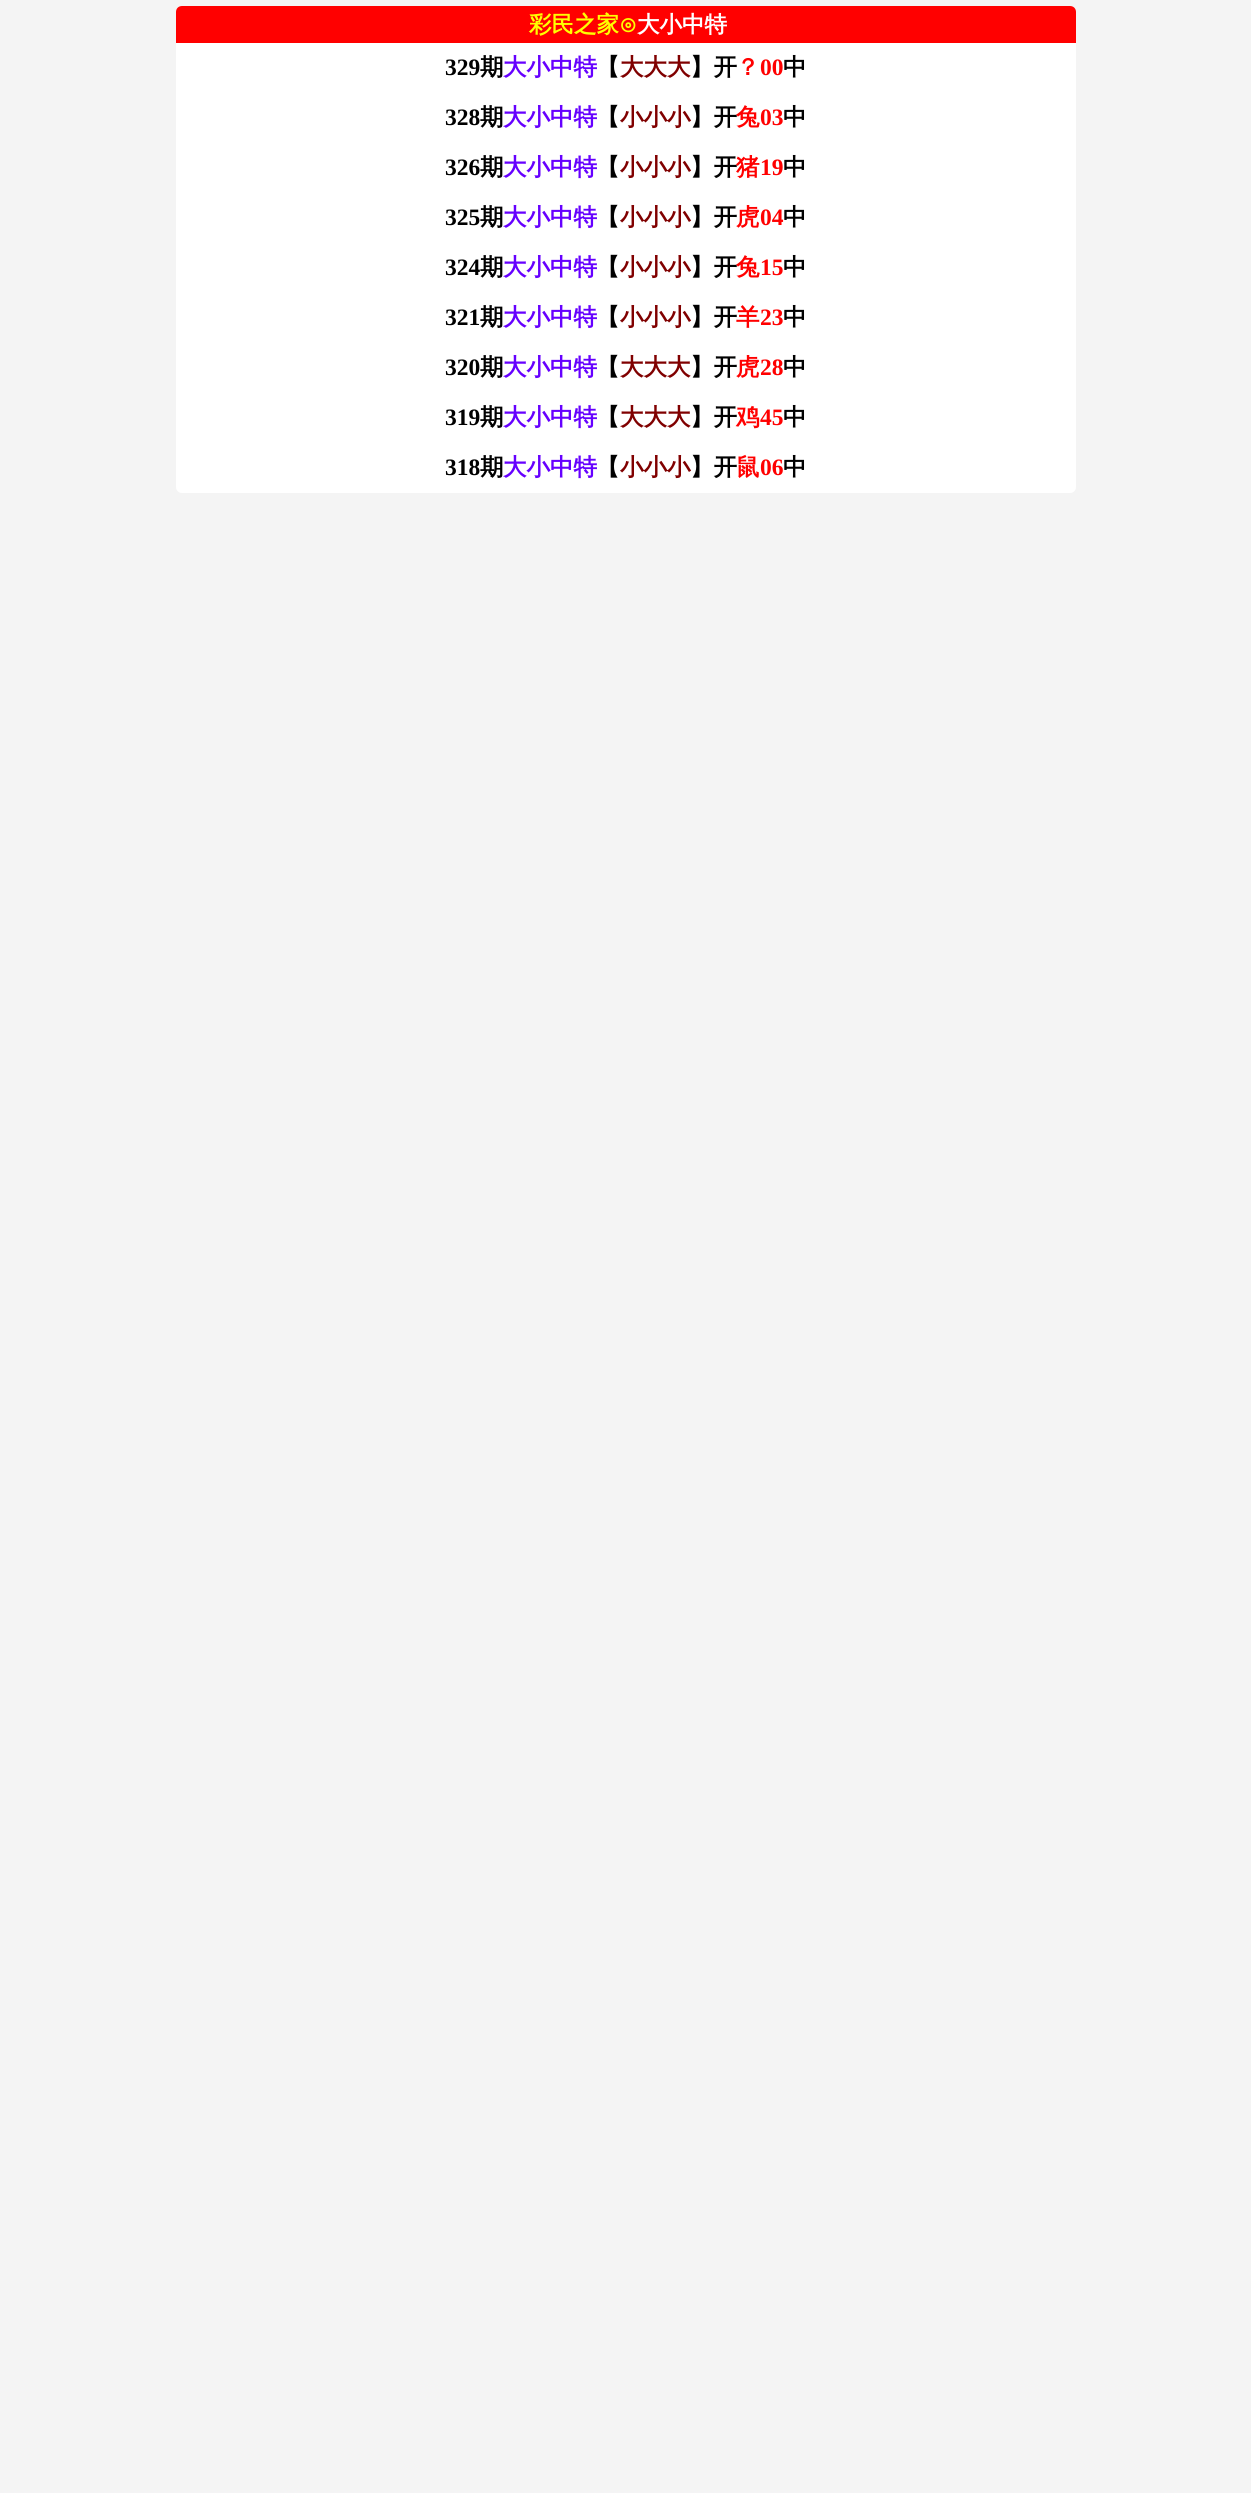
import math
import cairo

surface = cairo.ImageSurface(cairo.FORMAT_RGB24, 1251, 2493)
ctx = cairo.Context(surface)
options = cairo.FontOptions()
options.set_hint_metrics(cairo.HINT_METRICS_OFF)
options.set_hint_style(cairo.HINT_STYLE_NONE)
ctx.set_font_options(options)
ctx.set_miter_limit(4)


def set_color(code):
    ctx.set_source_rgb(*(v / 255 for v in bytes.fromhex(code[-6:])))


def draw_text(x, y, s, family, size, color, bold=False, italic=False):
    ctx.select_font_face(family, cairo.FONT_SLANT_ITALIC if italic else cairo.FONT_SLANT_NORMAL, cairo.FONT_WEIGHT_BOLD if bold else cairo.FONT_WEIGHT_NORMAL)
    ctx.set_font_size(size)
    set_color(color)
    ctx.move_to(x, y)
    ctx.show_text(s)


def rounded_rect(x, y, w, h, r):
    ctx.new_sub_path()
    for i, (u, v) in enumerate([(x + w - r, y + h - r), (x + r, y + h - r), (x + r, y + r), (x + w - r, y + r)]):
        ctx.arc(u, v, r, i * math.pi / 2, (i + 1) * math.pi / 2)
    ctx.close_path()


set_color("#f4f4f4")
ctx.paint()
set_color("#ffffff")
rounded_rect(176, 6, 900, 487, 6)
ctx.fill()
set_color("#ff0000")
ctx.new_path()
ctx.move_to(182, 6)
ctx.line_to(1070, 6)
ctx.curve_to(1073.5, 6, 1076, 8.5, 1076, 12)
ctx.line_to(1076, 43)
ctx.line_to(176, 43)
ctx.line_to(176, 12)
ctx.curve_to(176, 8.5, 178.5, 6, 182, 6)
ctx.close_path()
ctx.fill()
draw_text(529, 32, "彩民之家⊙", "WenQuanYi Zen Hei", 22.5, "#ffff00", bold=True)
draw_text(637, 32, "大小中特", "WenQuanYi Zen Hei", 22.5, "#ffffff", bold=True)
draw_text(445, 75, "329", "Liberation Serif", 23.5, "#000000", bold=True)
draw_text(480, 75, "期", "WenQuanYi Zen Hei", 23.5, "#000000", bold=True)
draw_text(503, 75, "大小中特", "WenQuanYi Zen Hei", 23.5, "#6600ff", bold=True)
draw_text(596, 75, "【", "WenQuanYi Zen Hei", 23.5, "#000000", bold=True)
draw_text(620, 75, "大大大", "WenQuanYi Zen Hei", 23.5, "#800000", bold=True)
draw_text(690, 75, "】开", "WenQuanYi Zen Hei", 23.5, "#000000", bold=True)
draw_text(736, 75, "？", "WenQuanYi Zen Hei", 23.5, "#ff0000", bold=True)
draw_text(760, 75, "00", "Liberation Serif", 23.5, "#ff0000", bold=True)
draw_text(783, 75, "中", "WenQuanYi Zen Hei", 23.5, "#000000", bold=True)
draw_text(445, 125, "328", "Liberation Serif", 23.5, "#000000", bold=True)
draw_text(480, 125, "期", "WenQuanYi Zen Hei", 23.5, "#000000", bold=True)
draw_text(503, 125, "大小中特", "WenQuanYi Zen Hei", 23.5, "#6600ff", bold=True)
draw_text(596, 125, "【", "WenQuanYi Zen Hei", 23.5, "#000000", bold=True)
draw_text(620, 125, "小小小", "WenQuanYi Zen Hei", 23.5, "#800000", bold=True)
draw_text(690, 125, "】开", "WenQuanYi Zen Hei", 23.5, "#000000", bold=True)
draw_text(736, 125, "兔", "WenQuanYi Zen Hei", 23.5, "#ff0000", bold=True)
draw_text(760, 125, "03", "Liberation Serif", 23.5, "#ff0000", bold=True)
draw_text(783, 125, "中", "WenQuanYi Zen Hei", 23.5, "#000000", bold=True)
draw_text(445, 175, "326", "Liberation Serif", 23.5, "#000000", bold=True)
draw_text(480, 175, "期", "WenQuanYi Zen Hei", 23.5, "#000000", bold=True)
draw_text(503, 175, "大小中特", "WenQuanYi Zen Hei", 23.5, "#6600ff", bold=True)
draw_text(596, 175, "【", "WenQuanYi Zen Hei", 23.5, "#000000", bold=True)
draw_text(620, 175, "小小小", "WenQuanYi Zen Hei", 23.5, "#800000", bold=True)
draw_text(690, 175, "】开", "WenQuanYi Zen Hei", 23.5, "#000000", bold=True)
draw_text(736, 175, "猪", "WenQuanYi Zen Hei", 23.5, "#ff0000", bold=True)
draw_text(760, 175, "19", "Liberation Serif", 23.5, "#ff0000", bold=True)
draw_text(783, 175, "中", "WenQuanYi Zen Hei", 23.5, "#000000", bold=True)
draw_text(445, 225, "325", "Liberation Serif", 23.5, "#000000", bold=True)
draw_text(480, 225, "期", "WenQuanYi Zen Hei", 23.5, "#000000", bold=True)
draw_text(503, 225, "大小中特", "WenQuanYi Zen Hei", 23.5, "#6600ff", bold=True)
draw_text(596, 225, "【", "WenQuanYi Zen Hei", 23.5, "#000000", bold=True)
draw_text(620, 225, "小小小", "WenQuanYi Zen Hei", 23.5, "#800000", bold=True)
draw_text(690, 225, "】开", "WenQuanYi Zen Hei", 23.5, "#000000", bold=True)
draw_text(736, 225, "虎", "WenQuanYi Zen Hei", 23.5, "#ff0000", bold=True)
draw_text(760, 225, "04", "Liberation Serif", 23.5, "#ff0000", bold=True)
draw_text(783, 225, "中", "WenQuanYi Zen Hei", 23.5, "#000000", bold=True)
draw_text(445, 275, "324", "Liberation Serif", 23.5, "#000000", bold=True)
draw_text(480, 275, "期", "WenQuanYi Zen Hei", 23.5, "#000000", bold=True)
draw_text(503, 275, "大小中特", "WenQuanYi Zen Hei", 23.5, "#6600ff", bold=True)
draw_text(596, 275, "【", "WenQuanYi Zen Hei", 23.5, "#000000", bold=True)
draw_text(620, 275, "小小小", "WenQuanYi Zen Hei", 23.5, "#800000", bold=True)
draw_text(690, 275, "】开", "WenQuanYi Zen Hei", 23.5, "#000000", bold=True)
draw_text(736, 275, "兔", "WenQuanYi Zen Hei", 23.5, "#ff0000", bold=True)
draw_text(760, 275, "15", "Liberation Serif", 23.5, "#ff0000", bold=True)
draw_text(783, 275, "中", "WenQuanYi Zen Hei", 23.5, "#000000", bold=True)
draw_text(445, 325, "321", "Liberation Serif", 23.5, "#000000", bold=True)
draw_text(480, 325, "期", "WenQuanYi Zen Hei", 23.5, "#000000", bold=True)
draw_text(503, 325, "大小中特", "WenQuanYi Zen Hei", 23.5, "#6600ff", bold=True)
draw_text(596, 325, "【", "WenQuanYi Zen Hei", 23.5, "#000000", bold=True)
draw_text(620, 325, "小小小", "WenQuanYi Zen Hei", 23.5, "#800000", bold=True)
draw_text(690, 325, "】开", "WenQuanYi Zen Hei", 23.5, "#000000", bold=True)
draw_text(736, 325, "羊", "WenQuanYi Zen Hei", 23.5, "#ff0000", bold=True)
draw_text(760, 325, "23", "Liberation Serif", 23.5, "#ff0000", bold=True)
draw_text(783, 325, "中", "WenQuanYi Zen Hei", 23.5, "#000000", bold=True)
draw_text(445, 375, "320", "Liberation Serif", 23.5, "#000000", bold=True)
draw_text(480, 375, "期", "WenQuanYi Zen Hei", 23.5, "#000000", bold=True)
draw_text(503, 375, "大小中特", "WenQuanYi Zen Hei", 23.5, "#6600ff", bold=True)
draw_text(596, 375, "【", "WenQuanYi Zen Hei", 23.5, "#000000", bold=True)
draw_text(620, 375, "大大大", "WenQuanYi Zen Hei", 23.5, "#800000", bold=True)
draw_text(690, 375, "】开", "WenQuanYi Zen Hei", 23.5, "#000000", bold=True)
draw_text(736, 375, "虎", "WenQuanYi Zen Hei", 23.5, "#ff0000", bold=True)
draw_text(760, 375, "28", "Liberation Serif", 23.5, "#ff0000", bold=True)
draw_text(783, 375, "中", "WenQuanYi Zen Hei", 23.5, "#000000", bold=True)
draw_text(445, 425, "319", "Liberation Serif", 23.5, "#000000", bold=True)
draw_text(480, 425, "期", "WenQuanYi Zen Hei", 23.5, "#000000", bold=True)
draw_text(503, 425, "大小中特", "WenQuanYi Zen Hei", 23.5, "#6600ff", bold=True)
draw_text(596, 425, "【", "WenQuanYi Zen Hei", 23.5, "#000000", bold=True)
draw_text(620, 425, "大大大", "WenQuanYi Zen Hei", 23.5, "#800000", bold=True)
draw_text(690, 425, "】开", "WenQuanYi Zen Hei", 23.5, "#000000", bold=True)
draw_text(736, 425, "鸡", "WenQuanYi Zen Hei", 23.5, "#ff0000", bold=True)
draw_text(760, 425, "45", "Liberation Serif", 23.5, "#ff0000", bold=True)
draw_text(783, 425, "中", "WenQuanYi Zen Hei", 23.5, "#000000", bold=True)
draw_text(445, 475, "318", "Liberation Serif", 23.5, "#000000", bold=True)
draw_text(480, 475, "期", "WenQuanYi Zen Hei", 23.5, "#000000", bold=True)
draw_text(503, 475, "大小中特", "WenQuanYi Zen Hei", 23.5, "#6600ff", bold=True)
draw_text(596, 475, "【", "WenQuanYi Zen Hei", 23.5, "#000000", bold=True)
draw_text(620, 475, "小小小", "WenQuanYi Zen Hei", 23.5, "#800000", bold=True)
draw_text(690, 475, "】开", "WenQuanYi Zen Hei", 23.5, "#000000", bold=True)
draw_text(736, 475, "鼠", "WenQuanYi Zen Hei", 23.5, "#ff0000", bold=True)
draw_text(760, 475, "06", "Liberation Serif", 23.5, "#ff0000", bold=True)
draw_text(783, 475, "中", "WenQuanYi Zen Hei", 23.5, "#000000", bold=True)
surface.write_to_png("output.png")
